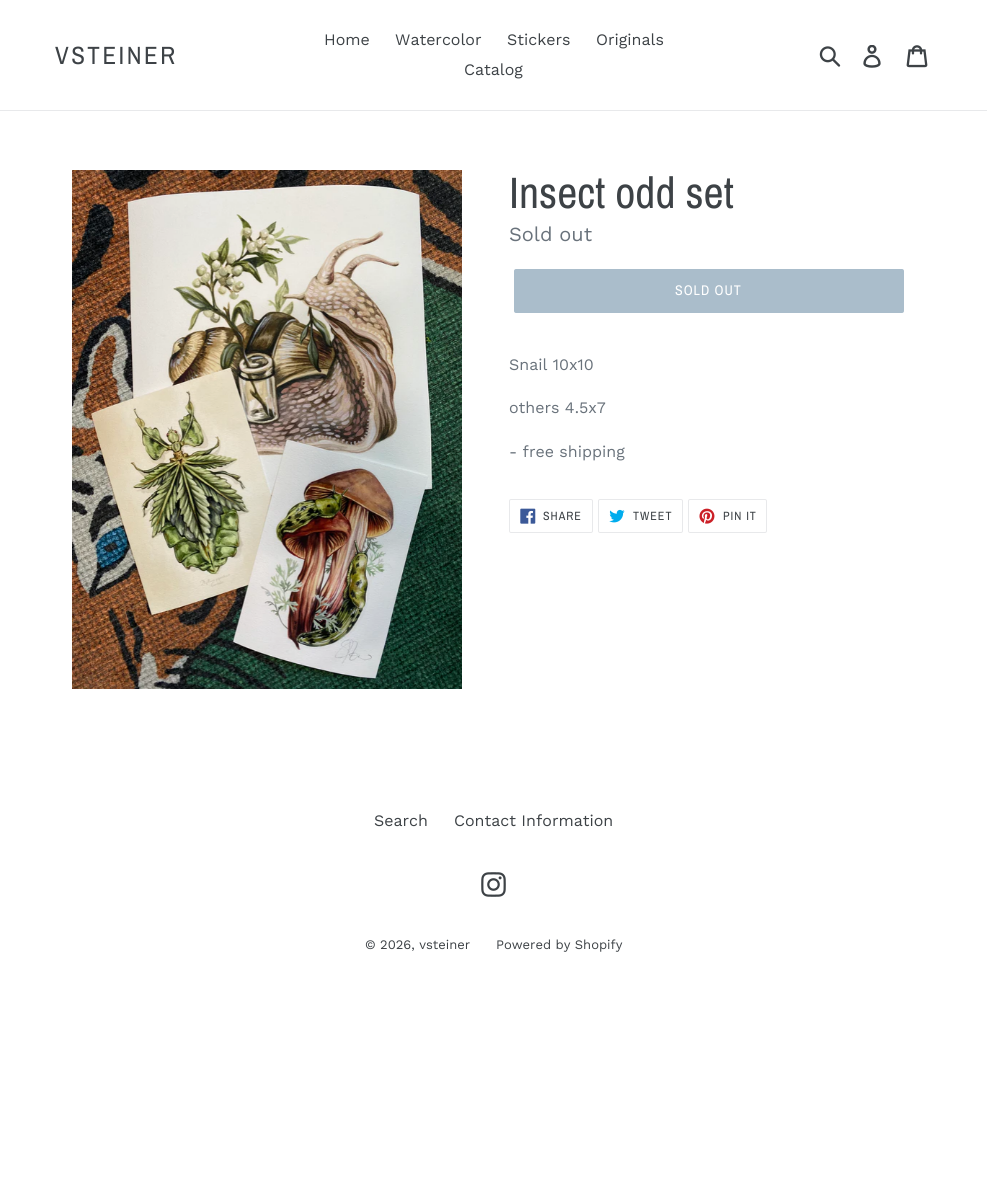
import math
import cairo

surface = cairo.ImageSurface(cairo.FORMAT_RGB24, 987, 1191)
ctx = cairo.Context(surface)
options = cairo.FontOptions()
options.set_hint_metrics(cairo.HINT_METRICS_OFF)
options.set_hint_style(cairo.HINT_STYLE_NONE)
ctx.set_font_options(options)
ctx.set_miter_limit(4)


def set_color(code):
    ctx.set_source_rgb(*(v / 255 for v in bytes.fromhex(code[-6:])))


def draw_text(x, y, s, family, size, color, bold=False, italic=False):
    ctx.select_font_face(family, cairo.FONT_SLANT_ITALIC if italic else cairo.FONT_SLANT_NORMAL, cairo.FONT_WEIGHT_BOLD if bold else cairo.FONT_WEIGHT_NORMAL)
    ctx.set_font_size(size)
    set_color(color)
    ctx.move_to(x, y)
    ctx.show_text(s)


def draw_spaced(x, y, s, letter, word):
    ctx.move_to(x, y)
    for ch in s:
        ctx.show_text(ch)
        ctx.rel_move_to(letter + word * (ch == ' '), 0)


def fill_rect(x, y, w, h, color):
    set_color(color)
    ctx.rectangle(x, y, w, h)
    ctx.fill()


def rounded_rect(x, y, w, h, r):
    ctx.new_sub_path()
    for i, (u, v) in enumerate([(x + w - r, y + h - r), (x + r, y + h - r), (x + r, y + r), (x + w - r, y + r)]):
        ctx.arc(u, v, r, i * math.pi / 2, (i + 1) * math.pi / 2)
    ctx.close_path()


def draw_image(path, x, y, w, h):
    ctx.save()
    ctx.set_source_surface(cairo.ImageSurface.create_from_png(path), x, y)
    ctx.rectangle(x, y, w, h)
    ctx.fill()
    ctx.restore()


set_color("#ffffff")
ctx.paint()
fill_rect(0, 110, 987, 1, "#e8e9eb")
ctx.select_font_face("Archivo Narrow")
ctx.set_font_size(25)
set_color("#3d4246")
draw_spaced(55, 64, "VSTEINER", 2.5, 0)
draw_text(324, 45, "Home", "Work Sans", 16, "#3d4246")
draw_text(395, 45, "Watercolor", "Work Sans", 16, "#3d4246")
draw_text(507, 45, "Stickers", "Work Sans", 16, "#3d4246")
draw_text(596, 45, "Originals", "Work Sans", 16, "#3d4246")
draw_text(464, 75, "Catalog", "Work Sans", 16, "#3d4246")
draw_image("assets/img1.png", 819, 46, 22, 21)
draw_image("assets/img2.png", 863, 45, 18, 23)
draw_image("assets/img3.png", 906, 45, 22, 23)
draw_image("assets/img4.png", 72, 170, 390, 519)
draw_text(509, 208, "Insect odd set", "Archivo Narrow", 44, "#3d4246")
draw_text(509, 241, "Sold out", "Work Sans", 20, "#69727b")
set_color("#aabdcb")
rounded_rect(514, 269, 390, 44, 2)
ctx.fill()
ctx.select_font_face("Archivo Narrow")
ctx.set_font_size(14)
set_color("#ffffff")
draw_spaced(675, 295, "SOLD OUT", 1, 0)
draw_text(509, 370, "Snail 10x10", "Work Sans", 16, "#69727b")
draw_text(509, 413, "others 4.5x7", "Work Sans", 16, "#69727b")
draw_text(509, 457, "- free shipping", "Work Sans", 16, "#69727b")
rounded_rect(509.5, 499.5, 83, 33, 1.5)
set_color("#e8e9eb")
ctx.set_line_width(1)
ctx.stroke()
draw_image("assets/img5.png", 520, 508, 16, 16)
ctx.select_font_face("Archivo Narrow")
ctx.set_font_size(12)
set_color("#3d4246")
draw_spaced(543, 520, "SHARE", 1, 0)
rounded_rect(598.5, 499.5, 84, 33, 1.5)
set_color("#e8e9eb")
ctx.stroke()
draw_image("assets/img6.png", 609, 509, 16, 14)
set_color("#3d4246")
draw_spaced(633, 520, "TWEET", 1, 0)
rounded_rect(688.5, 499.5, 78, 33, 1.5)
set_color("#e8e9eb")
ctx.stroke()
draw_image("assets/img7.png", 699, 508, 16, 16)
set_color("#3d4246")
draw_spaced(723, 520, "PIN IT", 1, 0)
draw_text(374, 826, "Search", "Work Sans", 16, "#3d4246")
draw_text(454, 826, "Contact Information", "Work Sans", 16, "#3d4246")
draw_image("assets/img8.png", 481, 872, 25, 25)
draw_text(365, 949, "© 2026, vsteiner", "Work Sans", 13, "#3d4246")
draw_text(496, 949, "Powered by Shopify", "Work Sans", 13, "#3d4246")
surface.write_to_png("output.png")
